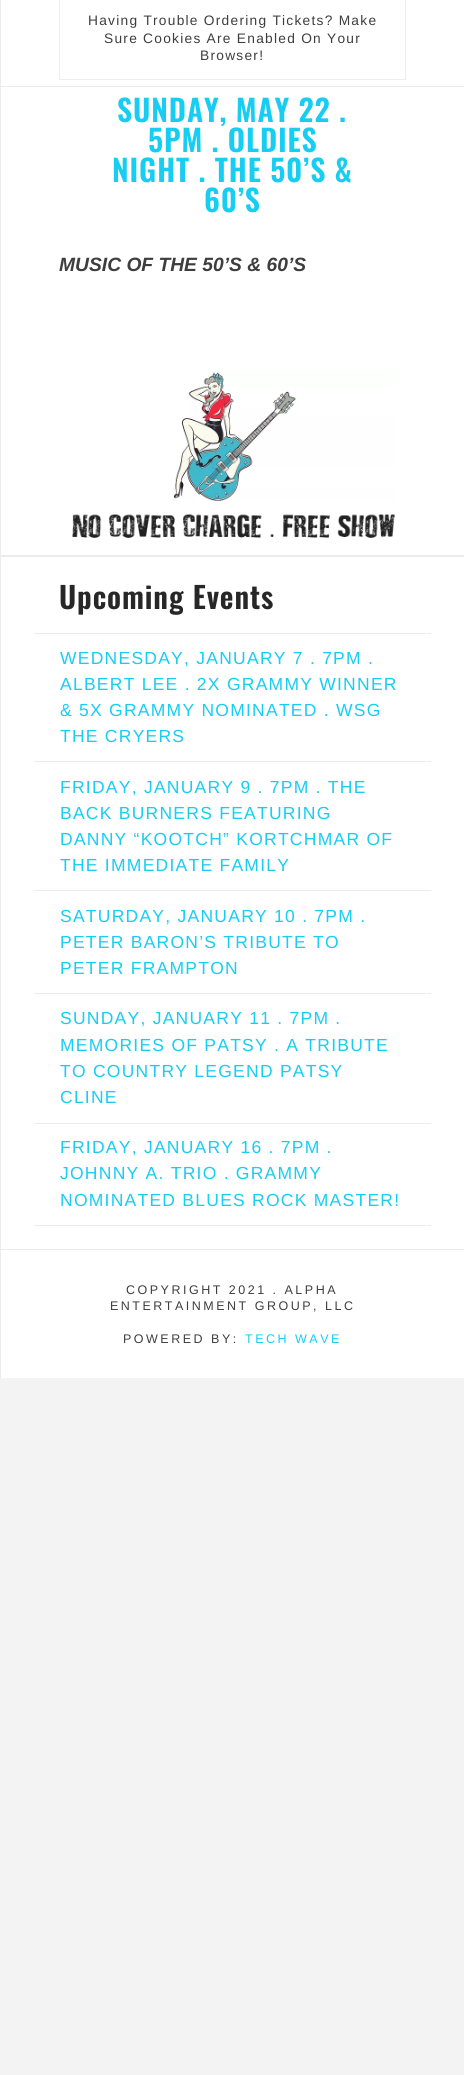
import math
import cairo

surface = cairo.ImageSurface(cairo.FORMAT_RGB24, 464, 2075)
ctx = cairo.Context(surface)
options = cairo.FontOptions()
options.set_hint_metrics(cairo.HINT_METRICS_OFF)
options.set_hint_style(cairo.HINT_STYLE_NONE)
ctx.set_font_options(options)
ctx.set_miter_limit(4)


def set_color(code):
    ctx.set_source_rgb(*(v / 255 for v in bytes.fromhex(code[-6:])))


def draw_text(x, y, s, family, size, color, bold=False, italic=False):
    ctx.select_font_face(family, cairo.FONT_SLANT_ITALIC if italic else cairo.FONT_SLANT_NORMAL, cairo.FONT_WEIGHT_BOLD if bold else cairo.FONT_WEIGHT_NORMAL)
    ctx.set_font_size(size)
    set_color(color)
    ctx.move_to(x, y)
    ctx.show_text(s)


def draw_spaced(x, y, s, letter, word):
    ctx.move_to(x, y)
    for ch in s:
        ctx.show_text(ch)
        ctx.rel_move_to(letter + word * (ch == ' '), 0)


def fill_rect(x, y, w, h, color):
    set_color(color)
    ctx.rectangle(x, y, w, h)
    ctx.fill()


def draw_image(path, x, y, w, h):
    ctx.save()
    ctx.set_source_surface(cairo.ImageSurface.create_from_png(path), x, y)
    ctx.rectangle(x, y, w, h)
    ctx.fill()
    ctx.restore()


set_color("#f3f3f3")
ctx.paint()
fill_rect(1, 0, 463, 1378, "#ffffff")
fill_rect(0, 0, 1, 1378, "#ececec")
fill_rect(1, 86, 463, 1, "#ececec")
ctx.new_path()
ctx.move_to(406, 0)
ctx.line_to(406, 80)
ctx.line_to(405, 79)
ctx.line_to(405, 0)
ctx.close_path()
ctx.fill()
ctx.set_source_rgba(0, 0, 0, 0.07)
ctx.new_path()
ctx.move_to(406, 80)
ctx.line_to(59, 80)
ctx.line_to(60, 79)
ctx.line_to(405, 79)
ctx.close_path()
ctx.fill()
ctx.new_path()
ctx.move_to(59, 80)
ctx.line_to(59, 0)
ctx.line_to(60, 0)
ctx.line_to(60, 79)
ctx.close_path()
ctx.fill()
ctx.select_font_face("Liberation Sans")
ctx.set_font_size(13.75)
set_color("#3e3e3e")
draw_spaced(88, 25, "Having Trouble Ordering Tickets? Make", 1.25, 0)
draw_spaced(104, 43, "Sure Cookies Are Enabled On Your", 1.25, 0)
draw_spaced(200, 60, "Browser!", 1.25, 0)
fill_rect(1, 555, 463, 2, "#ececec")
ctx.select_font_face("Oswald SemiBold")
ctx.set_font_size(30)
set_color("#18cdf2")
draw_spaced(117, 122, "SUNDAY, MAY 22 .", 0.9, 0)
draw_spaced(148, 152, "5PM . OLDIES", 0.9, 0)
draw_spaced(112, 182, "NIGHT . THE 50’S &", 0.9, 0)
draw_spaced(204, 212, "60’S", 0.9, 0)
draw_text(59, 271, "MUSIC OF THE 50’S & 60’S", "Liberation Sans", 19.25, "#3e3e3e", bold=True, italic=True)
draw_image("assets/img1.png", 72, 372, 324, 166)
ctx.select_font_face("Oswald SemiBold")
ctx.set_font_size(29.75)
set_color("#272727")
draw_spaced(59, 609, "Upcoming Events", 0.9, 0)
fill_rect(34, 633, 397, 1, "#ececec")
fill_rect(34, 761, 397, 1, "#ececec")
ctx.select_font_face("Liberation Sans")
ctx.set_font_size(17.5)
set_color("#18cdf2")
draw_spaced(60, 664, "WEDNESDAY, JANUARY 7 . 7PM .", 1.25, 0)
draw_spaced(60, 690, "ALBERT LEE . 2X GRAMMY WINNER", 1.25, 0)
draw_spaced(60, 716, "& 5X GRAMMY NOMINATED . WSG", 1.25, 0)
draw_spaced(60, 742, "THE CRYERS", 1.25, 0)
fill_rect(34, 890, 397, 1, "#ececec")
set_color("#18cdf2")
draw_spaced(60, 793, "FRIDAY, JANUARY 9 . 7PM . THE", 1.25, 0)
draw_spaced(60, 819, "BACK BURNERS FEATURING", 1.25, 0)
draw_spaced(60, 845, "DANNY “KOOTCH” KORTCHMAR OF", 1.25, 0)
draw_spaced(60, 871, "THE IMMEDIATE FAMILY", 1.25, 0)
fill_rect(34, 993, 397, 1, "#ececec")
set_color("#18cdf2")
draw_spaced(60, 922, "SATURDAY, JANUARY 10 . 7PM .", 1.25, 0)
draw_spaced(60, 948, "PETER BARON’S TRIBUTE TO", 1.25, 0)
draw_spaced(60, 974, "PETER FRAMPTON", 1.25, 0)
fill_rect(34, 1123, 397, 1, "#ececec")
set_color("#18cdf2")
draw_spaced(60, 1024, "SUNDAY, JANUARY 11 . 7PM .", 1.25, 0)
draw_spaced(60, 1051, "MEMORIES OF PATSY . A TRIBUTE", 1.25, 0)
draw_spaced(60, 1077, "TO COUNTRY LEGEND PATSY", 1.25, 0)
draw_spaced(60, 1103, "CLINE", 1.25, 0)
fill_rect(34, 1225, 397, 1, "#ececec")
set_color("#18cdf2")
draw_spaced(60, 1153, "FRIDAY, JANUARY 16 . 7PM .", 1.25, 0)
draw_spaced(60, 1179, "JOHNNY A. TRIO . GRAMMY", 1.25, 0)
draw_spaced(60, 1206, "NOMINATED BLUES ROCK MASTER!", 1.25, 0)
fill_rect(1, 1249, 463, 1, "#ececec")
ctx.set_font_size(12.5)
set_color("#3e3e3e")
draw_spaced(126, 1294, "COPYRIGHT 2021 . ALPHA", 2.5, 0)
draw_spaced(110, 1310, "ENTERTAINMENT GROUP, LLC", 2.5, 0)
draw_spaced(123, 1343, "POWERED BY:", 2.5, 0)
set_color("#18cdf2")
draw_spaced(245, 1343, "TECH WAVE", 2.5, 0)
surface.write_to_png("output.png")
